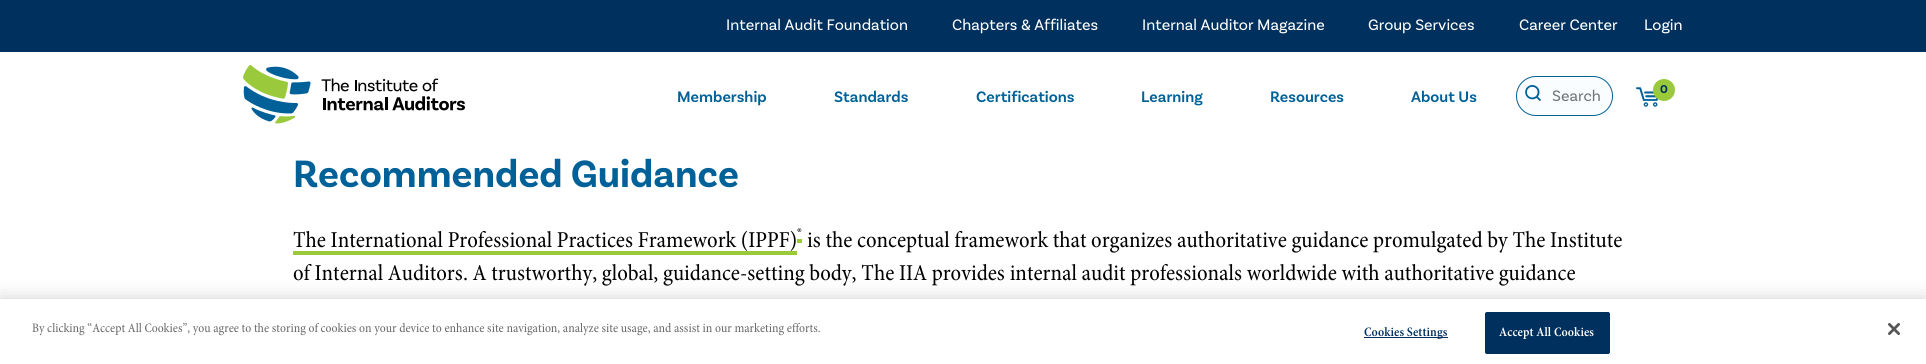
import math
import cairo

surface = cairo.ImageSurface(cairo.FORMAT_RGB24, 1926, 364)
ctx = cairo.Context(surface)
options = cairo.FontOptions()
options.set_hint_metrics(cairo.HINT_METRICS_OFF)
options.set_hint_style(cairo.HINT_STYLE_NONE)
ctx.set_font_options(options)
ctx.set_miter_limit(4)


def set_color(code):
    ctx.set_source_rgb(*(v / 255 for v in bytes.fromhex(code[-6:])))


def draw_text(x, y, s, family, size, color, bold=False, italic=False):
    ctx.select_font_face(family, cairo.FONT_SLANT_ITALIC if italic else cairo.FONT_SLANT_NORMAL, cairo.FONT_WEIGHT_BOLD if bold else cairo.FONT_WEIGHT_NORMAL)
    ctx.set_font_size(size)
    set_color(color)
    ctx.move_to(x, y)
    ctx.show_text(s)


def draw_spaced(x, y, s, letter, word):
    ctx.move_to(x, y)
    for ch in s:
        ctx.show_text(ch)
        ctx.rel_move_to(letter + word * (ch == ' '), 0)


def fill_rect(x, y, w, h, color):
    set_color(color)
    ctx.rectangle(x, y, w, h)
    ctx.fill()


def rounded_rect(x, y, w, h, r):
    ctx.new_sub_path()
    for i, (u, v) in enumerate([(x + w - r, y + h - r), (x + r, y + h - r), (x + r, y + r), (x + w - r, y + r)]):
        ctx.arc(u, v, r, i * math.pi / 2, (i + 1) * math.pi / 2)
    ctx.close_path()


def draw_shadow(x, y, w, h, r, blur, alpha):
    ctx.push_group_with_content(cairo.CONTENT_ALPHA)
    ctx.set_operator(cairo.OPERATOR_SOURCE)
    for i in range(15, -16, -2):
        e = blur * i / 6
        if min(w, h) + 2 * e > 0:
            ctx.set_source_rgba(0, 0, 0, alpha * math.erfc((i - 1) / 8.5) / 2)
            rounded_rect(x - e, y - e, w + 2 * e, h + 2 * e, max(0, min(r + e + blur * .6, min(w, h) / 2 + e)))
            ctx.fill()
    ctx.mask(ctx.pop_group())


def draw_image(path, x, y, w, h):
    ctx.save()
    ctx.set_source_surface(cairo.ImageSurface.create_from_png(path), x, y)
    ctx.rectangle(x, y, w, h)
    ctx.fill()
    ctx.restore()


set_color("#ffffff")
ctx.paint()
fill_rect(0, 0, 1926, 52, "#00305e")
draw_image("assets/img1.png", 243, 65, 222, 59)
draw_text(726, 30, "Internal Audit Foundation", "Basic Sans", 16, "#ffffff")
draw_text(952, 30, "Chapters & Affiliates", "Basic Sans", 16, "#ffffff")
draw_text(1142, 30, "Internal Auditor Magazine", "Basic Sans", 16, "#ffffff")
draw_text(1368, 30, "Group Services", "Basic Sans", 16, "#ffffff")
draw_text(1519, 30, "Career Center", "Basic Sans", 16, "#ffffff")
draw_text(1644, 30, "Login", "Basic Sans", 16, "#ffffff")
draw_text(677, 102, "Membership", "Basic Sans SemiBold", 16, "#006198")
draw_text(834, 102, "Standards", "Basic Sans SemiBold", 16, "#006198")
draw_text(976, 102, "Certifications", "Basic Sans SemiBold", 16, "#006198")
draw_text(1141, 102, "Learning", "Basic Sans SemiBold", 16, "#006198")
draw_text(1270, 102, "Resources", "Basic Sans SemiBold", 16, "#006198")
draw_text(1411, 102, "About Us", "Basic Sans SemiBold", 16, "#006198")
set_color("#fafdff")
rounded_rect(1516.5, 76.5, 96, 39, 19.5)
ctx.fill_preserve()
set_color("#006198")
ctx.set_line_width(1)
ctx.stroke()
draw_image("assets/img2.png", 1525, 85, 16, 16)
draw_text(1552, 101, "Search", "Basic Sans", 16, "#757575")
draw_image("assets/img3.png", 1636, 87, 22, 20)
set_color("#9aca3c")
ctx.arc(1664, 90, 11, 0, 2 * math.pi)
ctx.fill()
draw_text(1660, 93, "0", "Basic Sans", 12, "#00305e", bold=True)
draw_text(293, 187, "Recommended Guidance", "Basic Sans", 40, "#006198", bold=True)
draw_text(293, 247, "The International Professional Practices Framework (IPPF)", "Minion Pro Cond", 23, "#000000")
fill_rect(293, 251, 504, 4, "#9aca3c")
fill_rect(797, 239, 5, 4, "#9aca3c")
draw_text(797, 238, "®", "Minion Pro Cond", 15, "#000000")
draw_text(807, 247, "is the conceptual framework that organizes authoritative guidance promulgated by The Institute", "Minion Pro Cond", 23, "#000000")
draw_text(293, 280, "of Internal Auditors. A trustworthy, global, guidance-setting body, The IIA provides internal audit professionals worldwide with authoritative guidance", "Minion Pro Cond", 23, "#000000")
set_color("#000000")
draw_shadow(0, 299, 1926, 65, 0, 9, 0.2)
fill_rect(0, 299, 1926, 65, "#ffffff")
draw_text(32, 332, "By clicking “Accept All Cookies”, you agree to the storing of cookies on your device to enhance site navigation, analyze site usage, and assist in our marketing efforts.", "Minion Pro Cond", 13, "#696969")
fill_rect(1364, 337, 84, 1, "#00305e")
ctx.select_font_face("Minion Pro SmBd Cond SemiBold")
draw_spaced(1364, 336, "Cookies Settings", 0.1, 0)
rounded_rect(1485.5, 312.5, 124, 41, 1.5)
ctx.fill_preserve()
ctx.stroke()
set_color("#ffffff")
draw_spaced(1499, 336, "Accept All Cookies", 0.1, 0)
draw_image("assets/img4.png", 1888, 323, 12, 12)
surface.write_to_png("output.png")
